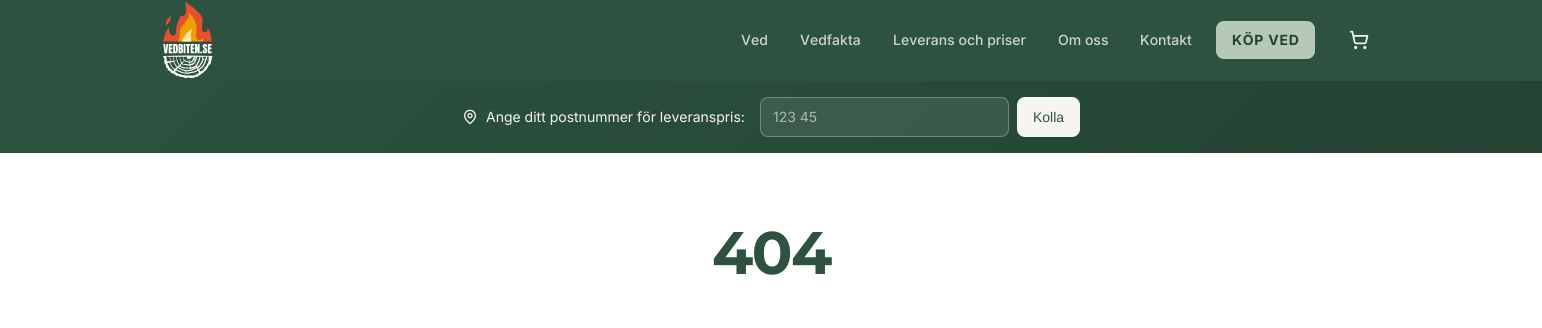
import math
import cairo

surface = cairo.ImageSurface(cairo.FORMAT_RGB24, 1542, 328)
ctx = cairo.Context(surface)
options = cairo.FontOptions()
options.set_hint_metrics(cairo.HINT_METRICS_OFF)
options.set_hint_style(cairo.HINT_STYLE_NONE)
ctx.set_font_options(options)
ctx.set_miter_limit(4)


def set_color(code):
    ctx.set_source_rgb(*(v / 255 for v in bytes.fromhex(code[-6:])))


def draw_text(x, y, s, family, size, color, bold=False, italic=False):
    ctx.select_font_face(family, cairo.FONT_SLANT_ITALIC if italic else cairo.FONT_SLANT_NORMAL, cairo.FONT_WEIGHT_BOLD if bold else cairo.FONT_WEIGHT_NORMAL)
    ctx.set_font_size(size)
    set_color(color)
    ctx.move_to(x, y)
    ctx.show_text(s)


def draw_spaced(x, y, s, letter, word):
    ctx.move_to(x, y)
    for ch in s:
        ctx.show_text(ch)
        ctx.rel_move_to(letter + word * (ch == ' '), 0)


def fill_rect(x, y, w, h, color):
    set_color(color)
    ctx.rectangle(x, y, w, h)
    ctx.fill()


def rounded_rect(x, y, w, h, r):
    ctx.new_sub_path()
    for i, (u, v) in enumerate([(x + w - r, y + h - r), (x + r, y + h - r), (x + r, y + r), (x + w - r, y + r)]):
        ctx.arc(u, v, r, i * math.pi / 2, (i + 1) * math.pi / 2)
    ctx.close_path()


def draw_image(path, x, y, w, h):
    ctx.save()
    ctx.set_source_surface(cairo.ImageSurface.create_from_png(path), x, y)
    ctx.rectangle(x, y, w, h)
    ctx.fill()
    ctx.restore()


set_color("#ffffff")
ctx.paint()
fill_rect(0, 0, 1542, 81, "#2d5340")
draw_image("assets/img1.png", 163, 2, 50, 76)
draw_text(741, 45, "Ved", "Inter Medium", 14, "#cfd5ce")
draw_text(800, 45, "Vedfakta", "Inter Medium", 14, "#cfd5ce")
draw_text(893, 45, "Leverans och priser", "Inter Medium", 14, "#cfd5ce")
draw_text(1058, 45, "Om oss", "Inter Medium", 14, "#cfd5ce")
draw_text(1140, 45, "Kontakt", "Inter Medium", 14, "#cfd5ce")
set_color("#b6c9b6")
rounded_rect(1216, 21, 99, 38, 8)
ctx.fill()
ctx.select_font_face("Inter", cairo.FONT_SLANT_NORMAL, cairo.FONT_WEIGHT_BOLD)
set_color("#244233")
draw_spaced(1232, 45, "KÖP VED", 0.75, 0)
draw_image("assets/img2.png", 1349, 30, 20, 20)
gradient = cairo.LinearGradient(367, -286, 1175, 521)
gradient.add_color_stop_rgba(0, 0.176, 0.325, 0.251, 1)
gradient.add_color_stop_rgba(1, 0.137, 0.263, 0.2, 1)
ctx.set_source(gradient)
ctx.rectangle(0, 81, 1542, 72)
ctx.fill()
draw_image("assets/img3.png", 464, 109, 12, 16)
draw_text(486, 122, "Ange ditt postnummer för leveranspris:", "Inter", 14, "#f7f5f2")
ctx.set_source_rgba(0.969, 0.961, 0.949, 0.1)
rounded_rect(760, 97, 249, 40, 8)
ctx.fill()
rounded_rect(760.5, 97.5, 248, 39, 7.5)
ctx.set_source_rgba(0.969, 0.961, 0.949, 0.3)
ctx.set_line_width(1)
ctx.stroke()
draw_text(773, 122, "123 45", "Inter", 14, "#acb8af")
set_color("#f7f5f2")
rounded_rect(1017, 97, 63, 40, 8)
ctx.fill()
draw_text(1033, 122, "Kolla", "Liberation Sans", 14, "#2d5340")
ctx.select_font_face("Montserrat", cairo.FONT_SLANT_NORMAL, cairo.FONT_WEIGHT_BOLD)
ctx.set_font_size(60)
draw_spaced(712, 274, "404", -1.5, 0)
surface.write_to_png("output.png")
